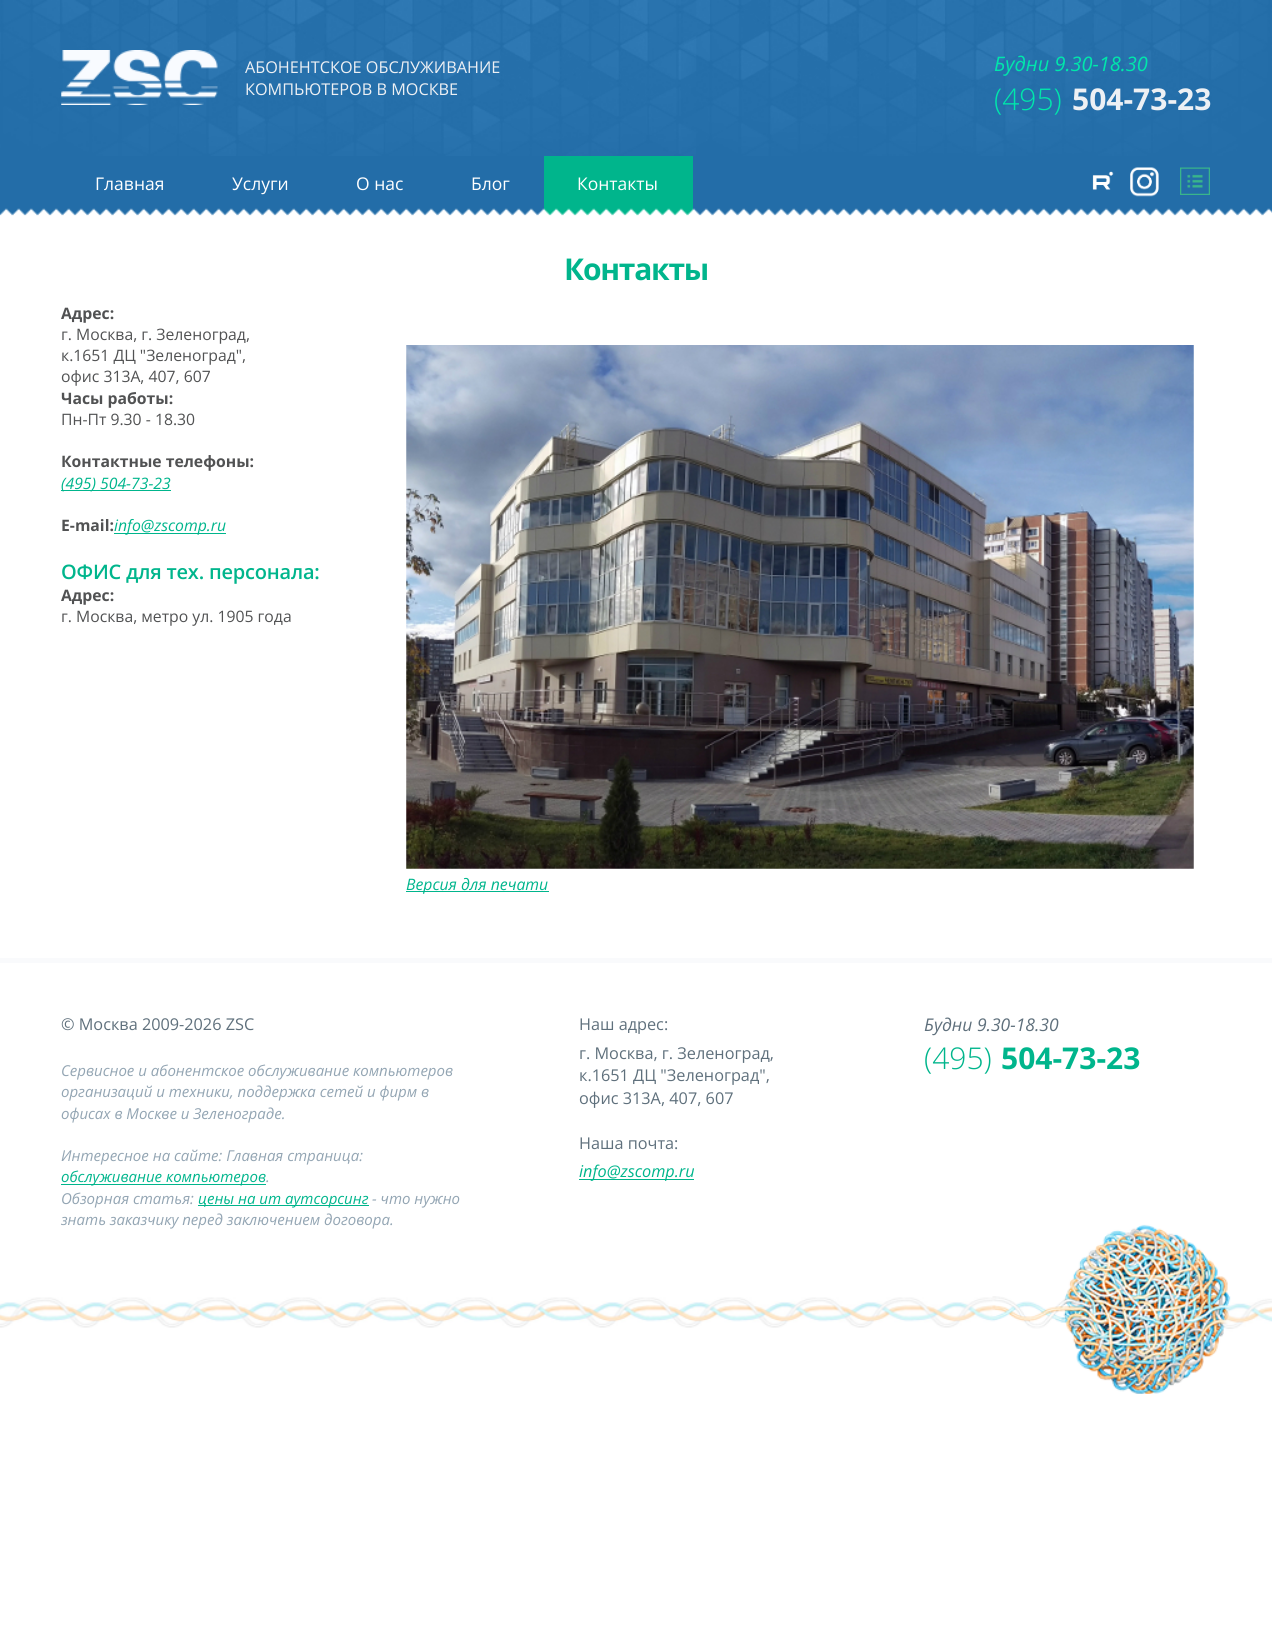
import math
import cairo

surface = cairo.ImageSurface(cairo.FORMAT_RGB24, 1272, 1648)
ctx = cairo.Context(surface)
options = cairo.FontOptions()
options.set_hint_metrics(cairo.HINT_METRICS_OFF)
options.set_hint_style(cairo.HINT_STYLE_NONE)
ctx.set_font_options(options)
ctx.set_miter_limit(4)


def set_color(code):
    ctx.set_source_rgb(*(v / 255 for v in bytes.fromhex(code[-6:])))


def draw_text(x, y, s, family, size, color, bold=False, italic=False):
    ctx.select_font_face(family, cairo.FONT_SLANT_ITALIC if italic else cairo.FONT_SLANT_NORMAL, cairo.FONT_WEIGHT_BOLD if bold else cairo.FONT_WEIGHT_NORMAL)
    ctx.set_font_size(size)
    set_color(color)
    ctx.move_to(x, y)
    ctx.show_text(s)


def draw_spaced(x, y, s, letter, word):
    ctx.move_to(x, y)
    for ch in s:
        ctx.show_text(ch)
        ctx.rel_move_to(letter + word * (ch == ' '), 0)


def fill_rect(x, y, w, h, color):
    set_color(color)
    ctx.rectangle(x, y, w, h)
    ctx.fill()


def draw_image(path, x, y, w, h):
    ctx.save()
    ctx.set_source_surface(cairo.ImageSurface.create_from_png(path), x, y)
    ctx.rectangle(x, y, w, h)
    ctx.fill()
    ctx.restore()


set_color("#ffffff")
ctx.paint()
draw_image("assets/img1.png", 0, 0, 1272, 156)
draw_image("assets/img2.png", 61, 50, 157, 55)
draw_text(245, 73, "АБОНЕНТСКОЕ ОБСЛУЖИВАНИЕ", "Open Sans", 16.25, "#edf0f4")
draw_text(245, 95, "КОМПЬЮТЕРОВ В МОСКВЕ", "Open Sans", 16.25, "#edf0f4")
draw_text(994, 71, "Будни 9.30-18.30", "Open Sans", 20, "#00e7ab", italic=True)
draw_text(994, 110, "(495)", "Open Sans Light", 30, "#00e7ab")
draw_text(1072, 110, "504-73-23", "Open Sans", 30, "#edf0f4", bold=True)
fill_rect(0, 156, 1272, 60, "#236da8")
draw_text(95, 190, "Главная", "Open Sans", 17.5, "#ffffff")
draw_text(232, 190, "Услуги", "Open Sans", 17.5, "#ffffff")
draw_text(356, 190, "О нас", "Open Sans", 17.5, "#ffffff")
draw_text(471, 190, "Блог", "Open Sans", 17.5, "#ffffff")
fill_rect(544, 156, 149, 60, "#00b58c")
draw_text(577, 190, "Контакты", "Open Sans", 17.5, "#ffffff")
draw_image("assets/img3.png", 1092, 171, 22, 19)
draw_image("assets/img4.png", 1130, 167, 29, 30)
draw_image("assets/img5.png", 1180, 167, 30, 28)
draw_image("assets/img6.png", 0, 208, 1272, 8)
ctx.select_font_face("Open Sans", cairo.FONT_SLANT_NORMAL, cairo.FONT_WEIGHT_BOLD)
ctx.set_font_size(30)
set_color("#00b58c")
draw_spaced(564, 280, "Контакты", -1.25, 0)
draw_text(61, 319, "Адрес:", "Open Sans", 15.75, "#515253", bold=True)
draw_text(61, 340, "г. Москва, г. Зеленоград,", "Open Sans", 15.75, "#515253")
draw_text(61, 361, "к.1651 ДЦ \"Зеленоград\",", "Open Sans", 15.75, "#515253")
draw_text(61, 382, "офис 313А, 407, 607", "Open Sans", 15.75, "#515253")
draw_text(61, 404, "Часы работы:", "Open Sans", 15.75, "#515253", bold=True)
draw_text(61, 425, "Пн-Пт 9.30 - 18.30", "Open Sans", 15.75, "#515253")
draw_text(61, 467, "Контактные телефоны:", "Open Sans", 15.75, "#515253", bold=True)
fill_rect(61, 490, 110, 1, "#00b58c")
draw_text(61, 489, "(495) 504-73-23", "Open Sans", 15.75, "#00b58c", italic=True)
draw_text(61, 531, "E-mail:", "Open Sans", 15.75, "#515253", bold=True)
fill_rect(114, 533, 112, 1, "#00b58c")
draw_text(114, 531, "info@zscomp.ru", "Open Sans", 15.75, "#00b58c", italic=True)
ctx.select_font_face("Open Sans SemiBold")
ctx.set_font_size(20)
draw_spaced(61, 579, "ОФИС для тех. персонала:", -0.2, 0)
draw_text(61, 601, "Адрес:", "Open Sans", 15.75, "#515253", bold=True)
draw_text(61, 622, "г. Москва, метро ул. 1905 года", "Open Sans", 15.75, "#515253")
draw_image("assets/img7.png", 406, 345, 788, 524)
fill_rect(406, 891, 143, 1, "#00b58c")
draw_text(406, 890, "Версия для печати", "Open Sans", 15.75, "#00b58c", italic=True)
draw_image("assets/img8.png", 0, 1224, 1272, 170)
fill_rect(0, 958, 1272, 5, "#f9fafc")
draw_text(61, 1030, "© Москва 2009-2026 ZSC", "Open Sans", 16.25, "#5f707c")
draw_text(61, 1076, "Сервисное и абонентское обслуживание компьютеров", "Open Sans", 15, "#93a5b3", italic=True)
draw_text(61, 1097, "организаций и техники, поддержка сетей и фирм в", "Open Sans", 15, "#93a5b3", italic=True)
draw_text(61, 1119, "офисах в Москве и Зеленограде.", "Open Sans", 15, "#93a5b3", italic=True)
draw_text(61, 1161, "Интересное на сайте: Главная страница:", "Open Sans", 15, "#93a5b3", italic=True)
fill_rect(61, 1184, 205, 1, "#00b58c")
draw_text(61, 1182, "обслуживание компьютеров", "Open Sans", 15, "#00b58c", italic=True)
draw_text(266, 1182, ".", "Open Sans", 15, "#93a5b3", italic=True)
draw_text(61, 1204, "Обзорная статья:", "Open Sans", 15, "#93a5b3", italic=True)
fill_rect(198, 1205, 171, 1, "#00b58c")
draw_text(198, 1204, "цены на ит аутсорсинг", "Open Sans", 15, "#00b58c", italic=True)
draw_text(372, 1204, "- что нужно", "Open Sans", 15, "#93a5b3", italic=True)
draw_text(61, 1225, "знать заказчику перед заключением договора.", "Open Sans", 15, "#93a5b3", italic=True)
draw_text(579, 1030, "Наш адрес:", "Open Sans", 16.25, "#5f707c")
draw_text(579, 1059, "г. Москва, г. Зеленоград,", "Open Sans", 16.25, "#5f707c")
draw_text(579, 1081, "к.1651 ДЦ \"Зеленоград\",", "Open Sans", 16.25, "#5f707c")
draw_text(579, 1104, "офис 313А, 407, 607", "Open Sans", 16.25, "#5f707c")
draw_text(579, 1149, "Наша почта:", "Open Sans", 16.25, "#5f707c")
fill_rect(579, 1179, 115, 1, "#00b58c")
draw_text(579, 1177, "info@zscomp.ru", "Open Sans", 16.25, "#00b58c", italic=True)
draw_text(924, 1031, "Будни 9.30-18.30", "Open Sans", 17.5, "#5f707c", italic=True)
draw_text(924, 1069, "(495)", "Open Sans Light", 30, "#00b58c")
draw_text(1001, 1069, "504-73-23", "Open Sans", 30, "#00b58c", bold=True)
surface.write_to_png("output.png")
